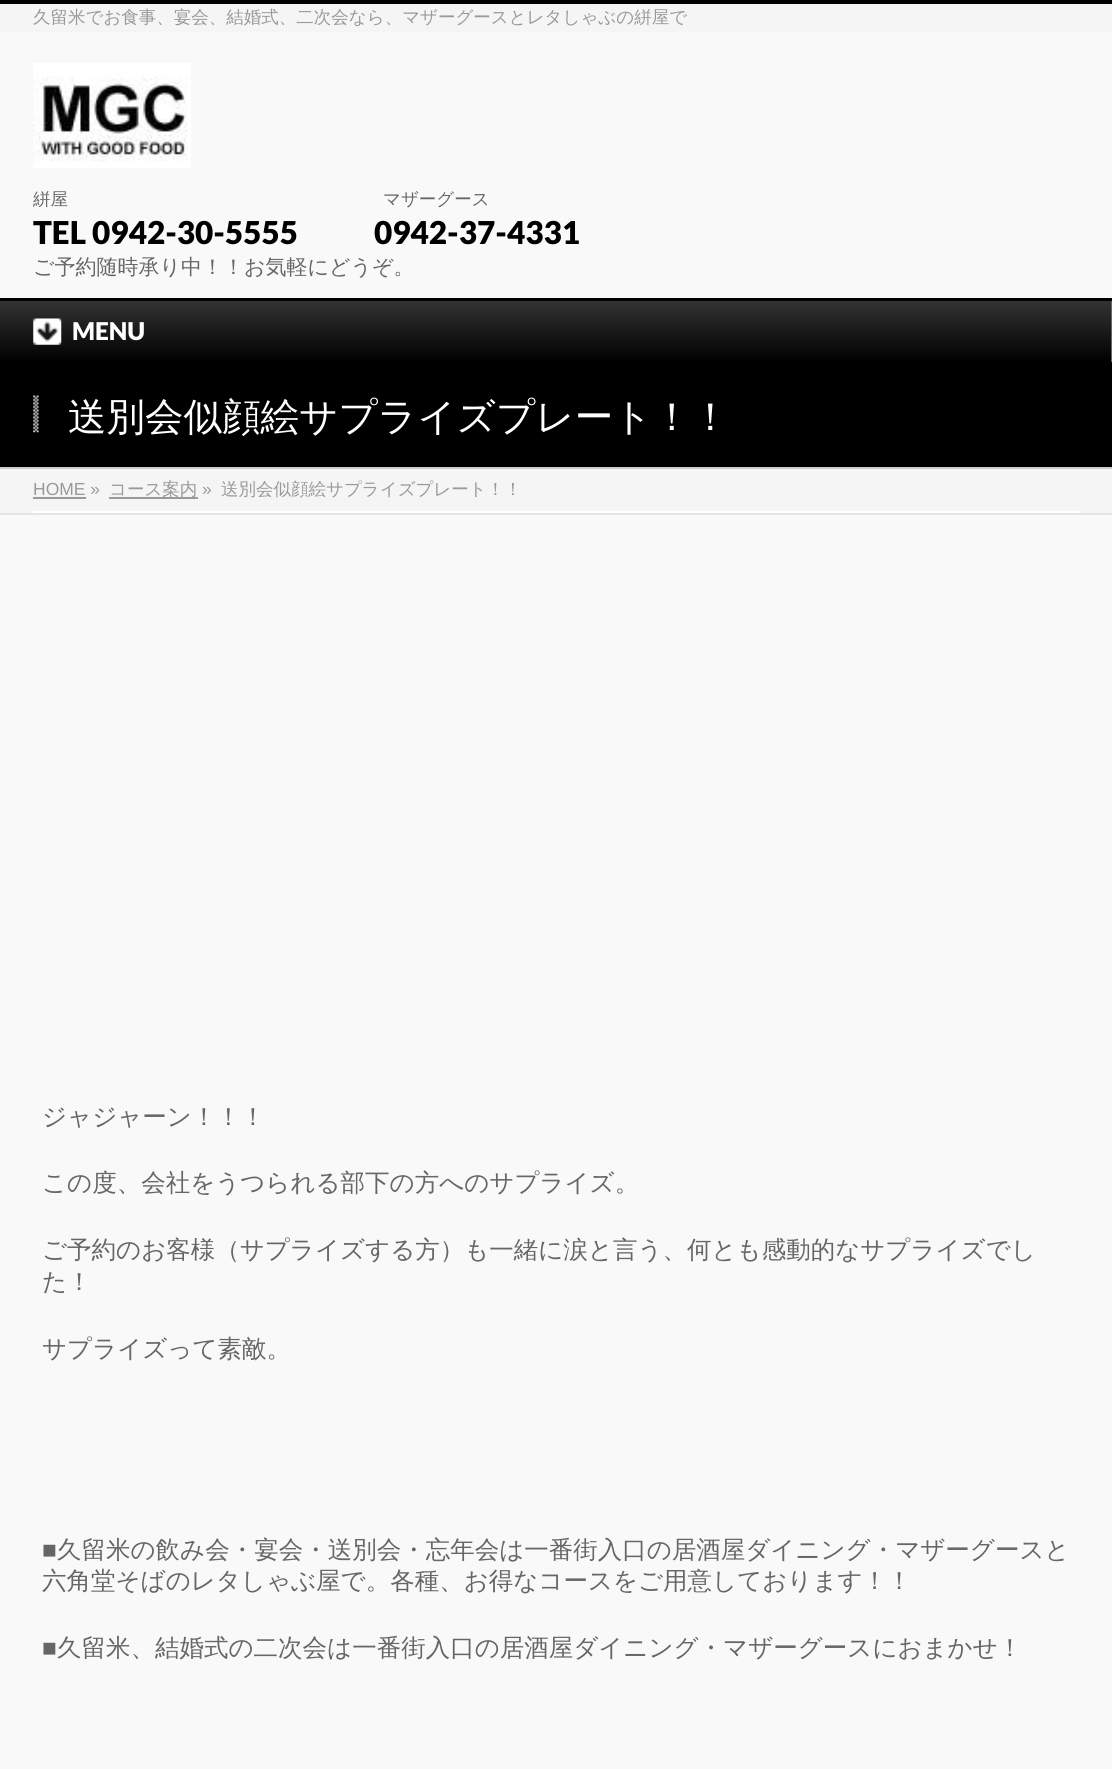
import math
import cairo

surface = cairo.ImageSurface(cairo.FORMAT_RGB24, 1112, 1769)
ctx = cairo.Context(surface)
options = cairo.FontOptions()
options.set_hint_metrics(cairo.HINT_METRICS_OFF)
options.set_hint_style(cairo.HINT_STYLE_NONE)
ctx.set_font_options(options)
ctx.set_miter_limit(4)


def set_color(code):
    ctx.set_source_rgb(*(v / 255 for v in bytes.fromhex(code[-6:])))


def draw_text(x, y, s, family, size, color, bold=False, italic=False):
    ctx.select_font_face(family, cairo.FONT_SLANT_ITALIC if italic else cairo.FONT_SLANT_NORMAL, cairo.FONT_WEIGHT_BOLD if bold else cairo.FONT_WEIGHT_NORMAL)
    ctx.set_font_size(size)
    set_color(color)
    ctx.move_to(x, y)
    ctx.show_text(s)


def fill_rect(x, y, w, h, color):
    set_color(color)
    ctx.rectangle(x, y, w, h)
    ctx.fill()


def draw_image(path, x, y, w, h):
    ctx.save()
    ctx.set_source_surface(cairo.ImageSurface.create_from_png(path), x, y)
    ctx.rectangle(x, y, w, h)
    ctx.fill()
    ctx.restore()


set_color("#f9f9f9")
ctx.paint()
fill_rect(0, 4, 1112, 28, "#f5f5f5")
fill_rect(0, 0, 1112, 4, "#000000")
draw_text(33, 23, "久留米でお食事、宴会、結婚式、二次会なら、マザーグースとレタしゃぶの絣屋で", "WenQuanYi Zen Hei Medium", 17.5, "#999999")
draw_image("assets/img1.png", 33, 63, 158, 105)
draw_text(33, 205, "絣屋　　　　　　　　　　　　　　　　　　マザーグース", "WenQuanYi Zen Hei Medium", 17.5, "#666666")
draw_text(33, 244, "TEL 0942-30-5555", "Lato Black", 31.5, "#000000")
draw_text(374, 244, "0942-37-4331", "Lato Black", 31.5, "#000000")
draw_text(33, 274, "ご予約随時承り中！！お気軽にどうぞ。", "WenQuanYi Zen Hei Medium", 21, "#666666")
fill_rect(0, 298, 1112, 3, "#000000")
gradient = cairo.LinearGradient(556, 301, 556, 362)
gradient.add_color_stop_rgba(0, 0.2, 0.2, 0.2, 1)
gradient.add_color_stop_rgba(1, 0, 0, 0, 1)
ctx.set_source(gradient)
ctx.rectangle(0, 301, 1111, 61)
ctx.fill()
fill_rect(1111, 301, 1, 61, "#666666")
draw_image("assets/img2.png", 33, 318, 29, 27)
draw_text(72, 340, "MENU", "Lato Black", 24.5, "#ffffff")
fill_rect(0, 362, 1112, 105, "#000000")
fill_rect(0, 467, 1112, 2, "#cccccc")
draw_image("assets/img3.png", 33, 395, 6, 38)
draw_text(68, 430, "送別会似顔絵サプライズプレート！！", "WenQuanYi Zen Hei Medium", 38.5, "#ffffff")
fill_rect(0, 469, 1112, 44, "#f5f5f5")
fill_rect(0, 513, 1112, 2, "#e5e5e5")
fill_rect(33, 511, 1047, 2, "#ffffff")
draw_text(33, 495, "HOME »", "Liberation Sans", 17.5, "#999999")
fill_rect(33, 497, 53, 2, "#999999")
fill_rect(109, 497, 89, 2, "#999999")
draw_text(109, 495, "コース案内", "WenQuanYi Zen Hei Medium", 17.5, "#999999")
draw_text(202, 495, "»", "Liberation Sans", 17.5, "#999999")
draw_text(221, 495, "送別会似顔絵サプライズプレート！！", "WenQuanYi Zen Hei Medium", 17.5, "#999999")
draw_text(42, 1125, "ジャジャーン！！！", "WenQuanYi Zen Hei Medium", 24.5, "#666666")
draw_text(42, 1191, "この度、会社をうつられる部下の方へのサプライズ。", "WenQuanYi Zen Hei Medium", 24.5, "#666666")
draw_text(42, 1258, "ご予約のお客様（サプライズする方）も一緒に涙と言う、何とも感動的なサプライズでし", "WenQuanYi Zen Hei Medium", 24.5, "#666666")
draw_text(42, 1290, "た！", "WenQuanYi Zen Hei Medium", 24.5, "#666666")
draw_text(42, 1357, "サプライズって素敵。", "WenQuanYi Zen Hei Medium", 24.5, "#666666")
draw_text(42, 1558, "■", "Liberation Sans", 24.5, "#666666")
draw_text(57, 1558, "久留米の飲み会・宴会・送別会・忘年会は一番街入口の居酒屋ダイニング・マザーグースと", "WenQuanYi Zen Hei Medium", 24.5, "#666666")
draw_text(42, 1589, "六角堂そばのレタしゃぶ屋で。各種、お得なコースをご用意しております！！", "WenQuanYi Zen Hei Medium", 24.5, "#666666")
draw_text(42, 1656, "■", "Liberation Sans", 24.5, "#666666")
draw_text(57, 1656, "久留米、結婚式の二次会は一番街入口の居酒屋ダイニング・マザーグースにおまかせ！", "WenQuanYi Zen Hei Medium", 24.5, "#666666")
surface.write_to_png("output.png")
